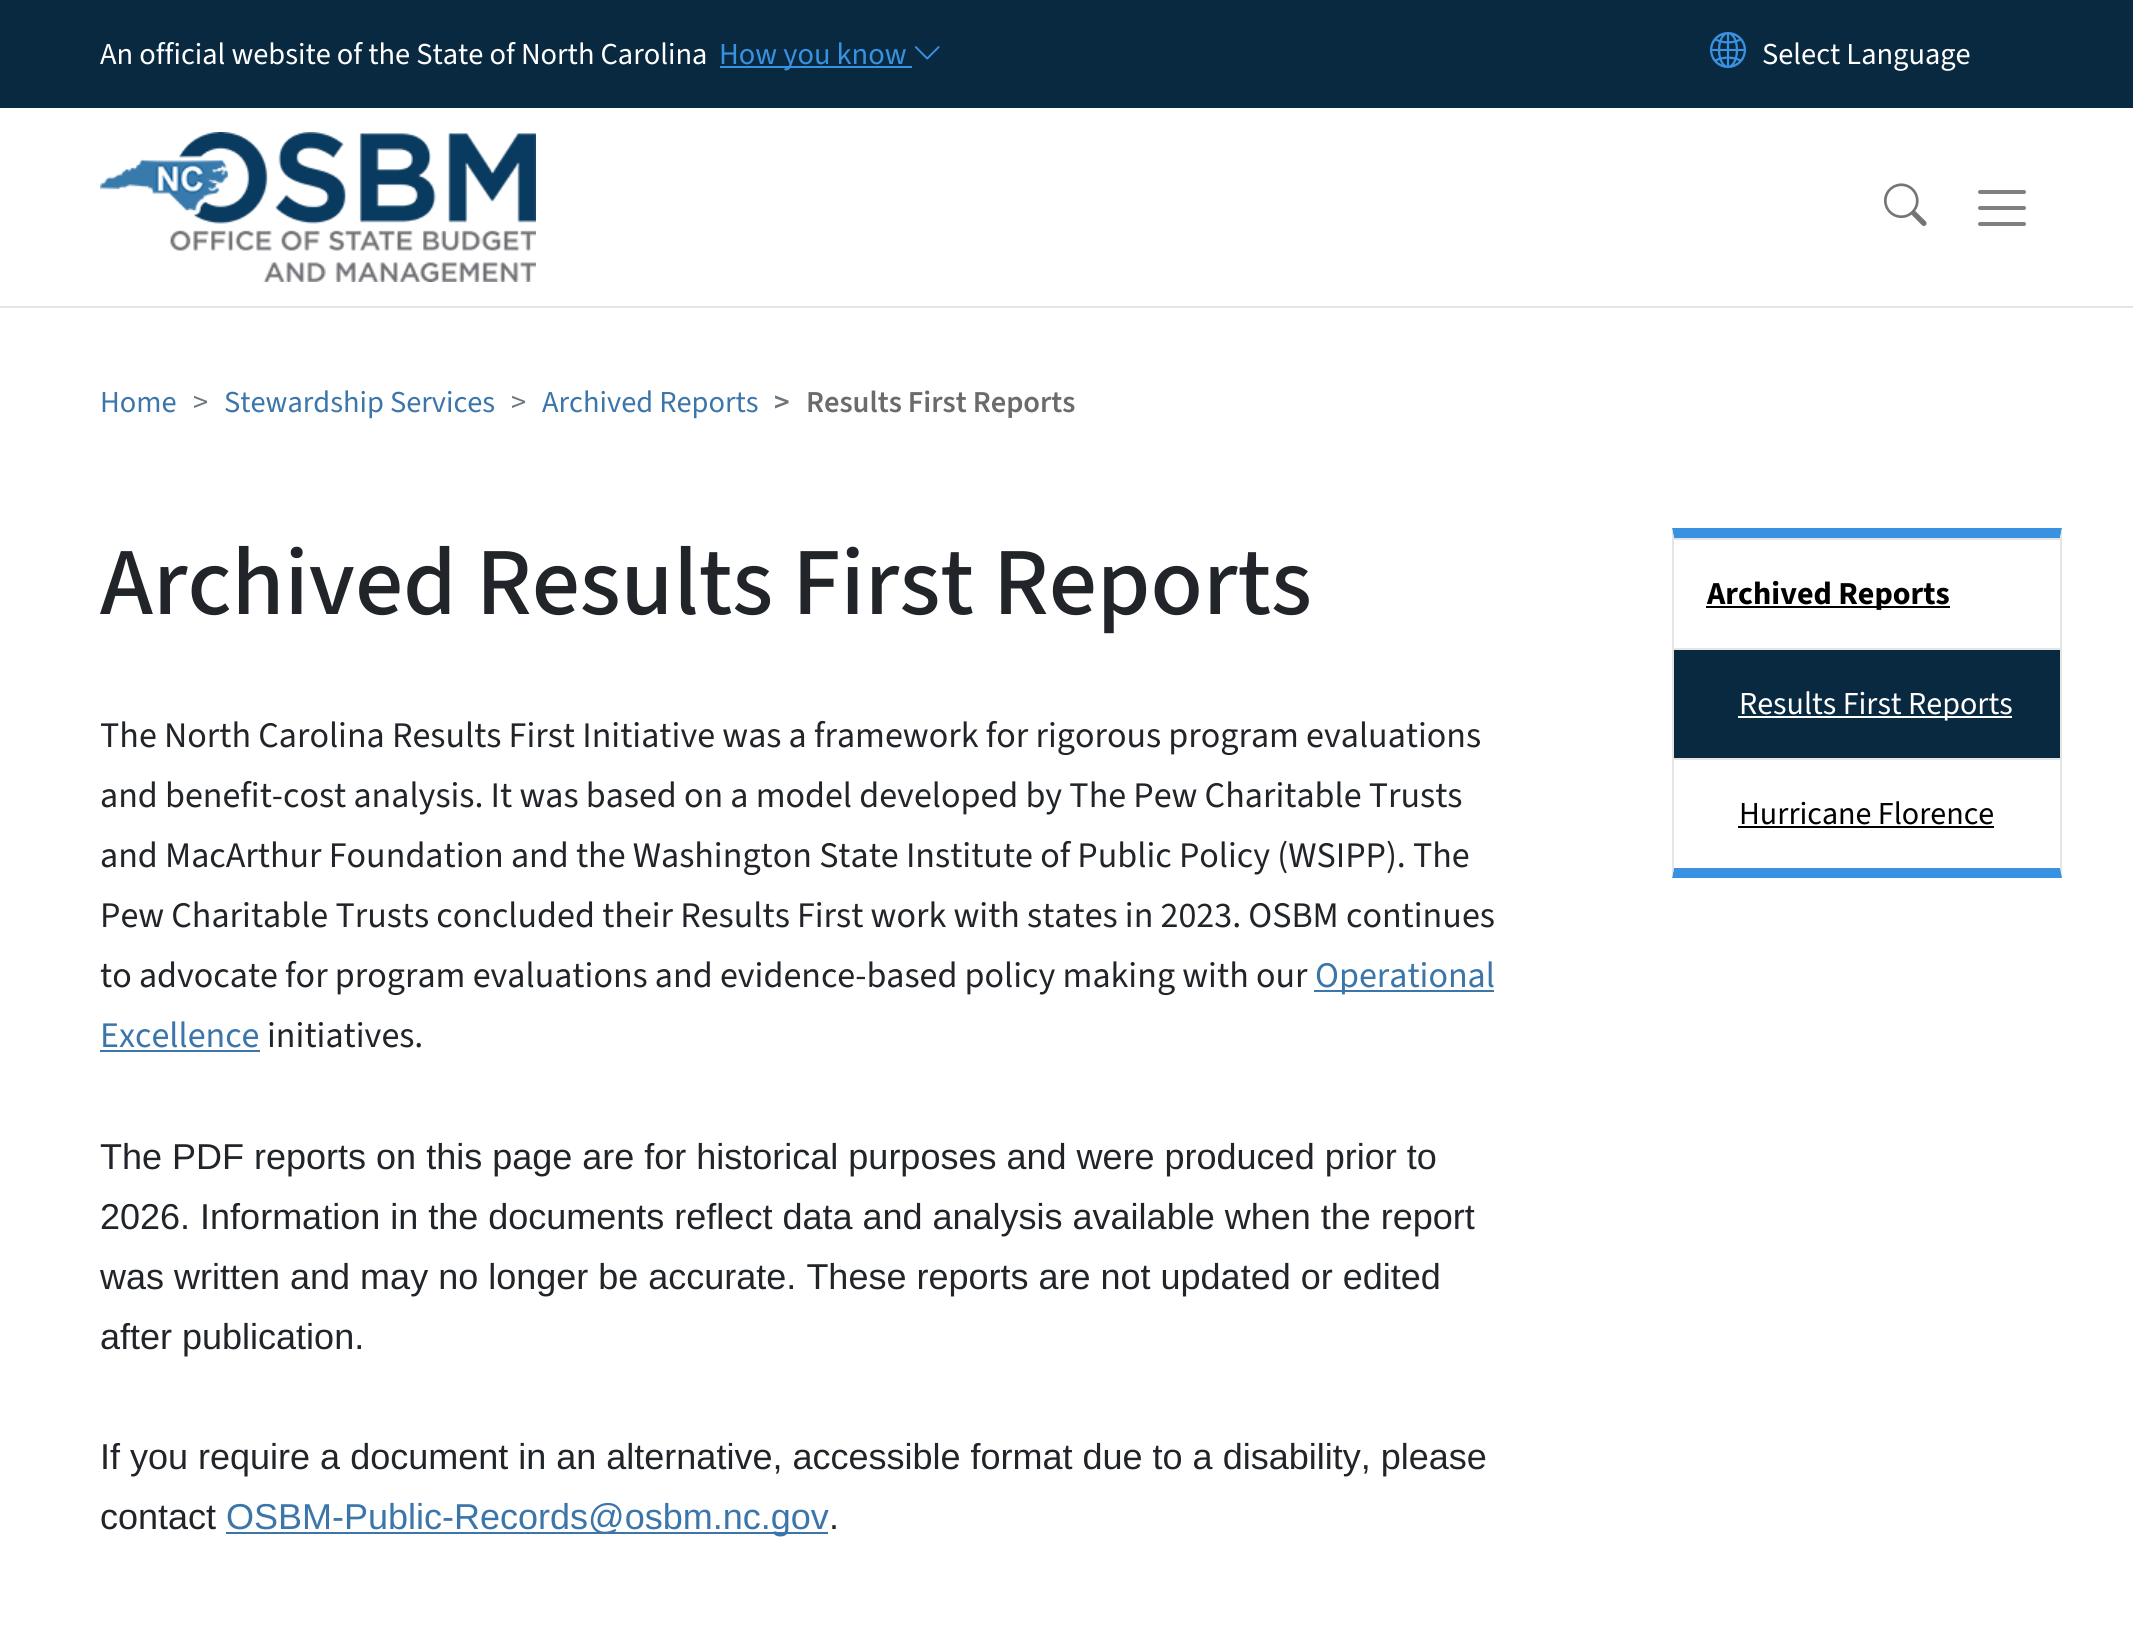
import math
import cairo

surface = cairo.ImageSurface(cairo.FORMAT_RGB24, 2133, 1638)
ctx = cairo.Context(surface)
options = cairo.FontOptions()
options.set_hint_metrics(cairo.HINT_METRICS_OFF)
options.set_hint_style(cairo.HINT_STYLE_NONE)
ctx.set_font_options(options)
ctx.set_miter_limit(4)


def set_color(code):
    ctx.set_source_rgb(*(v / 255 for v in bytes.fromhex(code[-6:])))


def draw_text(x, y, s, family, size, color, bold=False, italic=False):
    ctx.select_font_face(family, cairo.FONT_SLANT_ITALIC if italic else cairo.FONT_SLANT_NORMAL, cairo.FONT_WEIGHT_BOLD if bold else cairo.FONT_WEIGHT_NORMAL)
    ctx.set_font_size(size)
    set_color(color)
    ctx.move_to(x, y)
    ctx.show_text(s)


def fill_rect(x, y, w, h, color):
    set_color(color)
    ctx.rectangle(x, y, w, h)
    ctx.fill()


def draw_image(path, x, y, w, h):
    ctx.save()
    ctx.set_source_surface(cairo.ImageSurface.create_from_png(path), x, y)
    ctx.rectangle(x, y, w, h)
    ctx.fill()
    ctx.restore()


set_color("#ffffff")
ctx.paint()
fill_rect(0, 306, 2133, 2, "#e5e5e5")
fill_rect(0, 0, 2133, 108, "#092940")
draw_text(100, 64, "An official website of the State of North Carolina", "Source Sans 3", 30.4, "#ffffff")
fill_rect(720, 66, 192, 2, "#3892e1")
draw_text(719, 64, "How you know", "Source Sans 3", 30.4, "#3892e1")
draw_image("assets/img1.png", 914, 46, 26, 14)
draw_image("assets/img2.png", 1710, 32, 36, 36)
draw_text(1762, 64, "Select Language", "Source Sans 3", 30.4, "#ffffff")
draw_image("assets/img3.png", 100, 132, 436, 150)
draw_image("assets/img4.png", 1884, 183, 43, 43)
ctx.new_path()
ctx.move_to(1980, 192)
ctx.line_to(2024, 192)
ctx.move_to(1980, 208)
ctx.line_to(2024, 208)
ctx.move_to(1980, 224)
ctx.line_to(2024, 224)
set_color("#808080")
ctx.set_line_width(4)
ctx.set_line_cap(cairo.LINE_CAP_ROUND)
ctx.stroke()
draw_text(100, 412, "Home", "Source Sans 3", 30.4, "#3b75a9")
draw_text(193, 412, ">", "Source Sans 3", 30.4, "#6c757d")
draw_text(224, 412, "Stewardship Services", "Source Sans 3", 30.4, "#3b75a9")
draw_text(511, 412, ">", "Source Sans 3", 30.4, "#6c757d")
draw_text(542, 412, "Archived Reports", "Source Sans 3", 30.4, "#3b75a9")
draw_text(774, 412, ">", "Source Sans 3 SemiBold", 30.4, "#6c757d")
draw_text(806, 412, "Results First Reports", "Source Sans 3 SemiBold", 30.4, "#6b6b6b")
draw_text(100, 614, "Archived Results First Reports", "Source Sans 3 Medium", 96, "#212529")
draw_text(100, 747, "The North Carolina Results First Initiative was a framework for rigorous program evaluations", "Source Sans 3", 36, "#212529")
draw_text(100, 807, "and benefit-cost analysis. It was based on a model developed by The Pew Charitable Trusts", "Source Sans 3", 36, "#212529")
draw_text(100, 867, "and MacArthur Foundation and the Washington State Institute of Public Policy (WSIPP). The", "Source Sans 3", 36, "#212529")
draw_text(100, 927, "Pew Charitable Trusts concluded their Results First work with states in 2023. OSBM continues", "Source Sans 3", 36, "#212529")
draw_text(100, 987, "to advocate for program evaluations and evidence-based policy making with our", "Source Sans 3", 36, "#212529")
fill_rect(1314, 990, 180, 2, "#3b75a9")
draw_text(1315, 987, "Operational", "Source Sans 3", 36, "#3b75a9")
draw_text(100, 1047, "Excellence", "Source Sans 3", 36, "#3b75a9")
fill_rect(100, 1050, 160, 2, "#3b75a9")
draw_text(267, 1047, "initiatives.", "Source Sans 3", 36, "#212529")
draw_text(100, 1169, "The PDF reports on this page are for historical purposes and were produced prior to", "Liberation Sans", 36, "#212529")
draw_text(100, 1229, "2026. Information in the documents reflect data and analysis available when the report", "Liberation Sans", 36, "#212529")
draw_text(100, 1289, "was written and may no longer be accurate. These reports are not updated or edited", "Liberation Sans", 36, "#212529")
draw_text(100, 1349, "after publication.", "Liberation Sans", 36, "#212529")
draw_text(100, 1469, "If you require a document in an alternative, accessible format due to a disability, please", "Liberation Sans", 36, "#212529")
draw_text(100, 1529, "contact", "Liberation Sans", 36, "#212529")
fill_rect(226, 1532, 602, 2, "#3b75a9")
draw_text(226, 1529, "OSBM-Public-Records@osbm.nc.gov", "Liberation Sans", 36, "#3b75a9")
draw_text(829, 1529, ".", "Liberation Sans", 36, "#212529")
set_color("#3892e1")
ctx.new_path()
ctx.move_to(1672, 528)
ctx.line_to(2062, 528)
ctx.line_to(2060, 538)
ctx.line_to(1674, 538)
ctx.close_path()
ctx.fill()
set_color("#e5e5e5")
ctx.new_path()
ctx.move_to(2062, 528)
ctx.line_to(2062, 878)
ctx.line_to(2060, 868)
ctx.line_to(2060, 538)
ctx.close_path()
ctx.fill()
set_color("#3892e1")
ctx.new_path()
ctx.move_to(2062, 878)
ctx.line_to(1672, 878)
ctx.line_to(1674, 868)
ctx.line_to(2060, 868)
ctx.close_path()
ctx.fill()
set_color("#e5e5e5")
ctx.new_path()
ctx.move_to(1672, 878)
ctx.line_to(1672, 528)
ctx.line_to(1674, 538)
ctx.line_to(1674, 868)
ctx.close_path()
ctx.fill()
fill_rect(1674, 538, 386, 2, "#e5e5e5")
fill_rect(1706, 606, 244, 2, "#000000")
draw_text(1707, 604, "Archived Reports", "Source Sans 3", 32, "#000000", bold=True)
fill_rect(1674, 648, 386, 2, "#e5e5e5")
fill_rect(1674, 650, 386, 108, "#092940")
fill_rect(1738, 716, 274, 2, "#ffffff")
draw_text(1739, 714, "Results First Reports", "Source Sans 3", 32, "#ffffff")
fill_rect(1674, 758, 386, 2, "#e5e5e5")
draw_text(1739, 824, "Hurricane Florence", "Source Sans 3", 32, "#000000")
fill_rect(1738, 826, 256, 2, "#000000")
surface.write_to_png("output.png")
